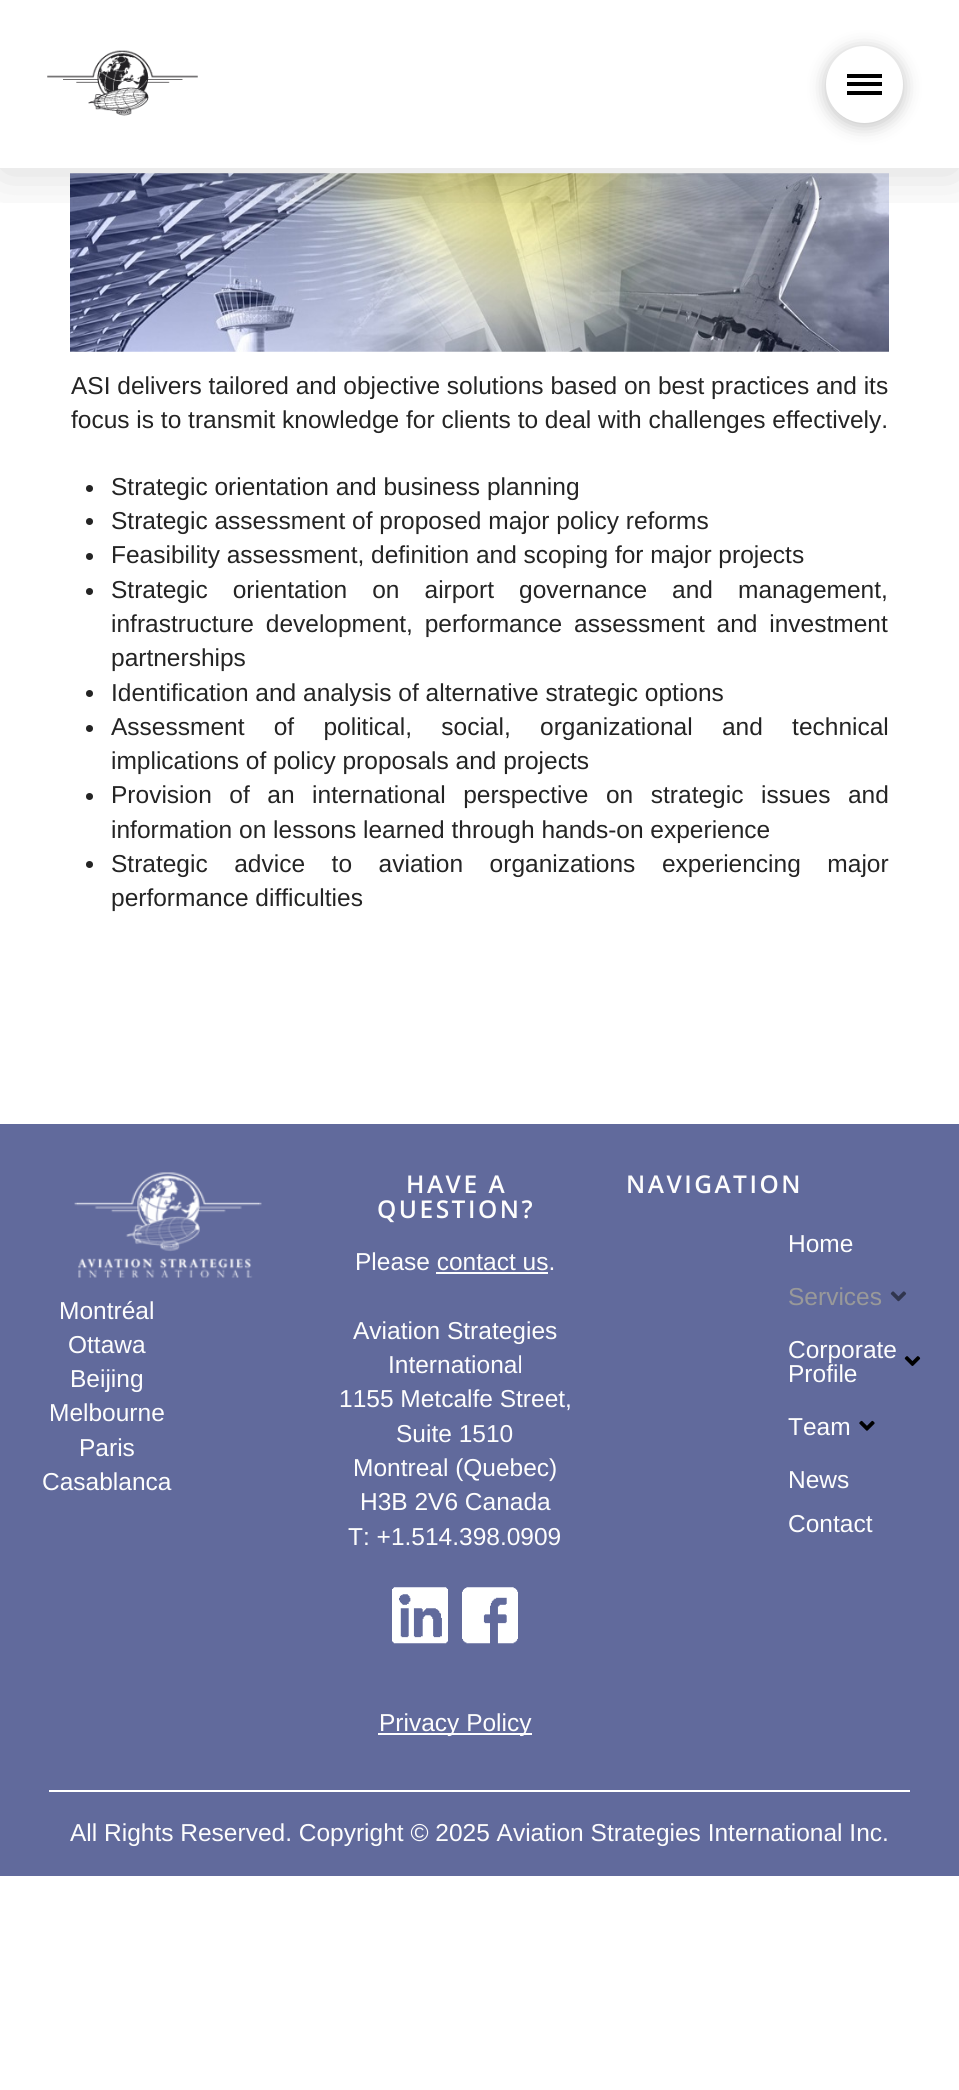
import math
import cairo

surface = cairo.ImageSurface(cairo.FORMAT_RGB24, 959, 2090)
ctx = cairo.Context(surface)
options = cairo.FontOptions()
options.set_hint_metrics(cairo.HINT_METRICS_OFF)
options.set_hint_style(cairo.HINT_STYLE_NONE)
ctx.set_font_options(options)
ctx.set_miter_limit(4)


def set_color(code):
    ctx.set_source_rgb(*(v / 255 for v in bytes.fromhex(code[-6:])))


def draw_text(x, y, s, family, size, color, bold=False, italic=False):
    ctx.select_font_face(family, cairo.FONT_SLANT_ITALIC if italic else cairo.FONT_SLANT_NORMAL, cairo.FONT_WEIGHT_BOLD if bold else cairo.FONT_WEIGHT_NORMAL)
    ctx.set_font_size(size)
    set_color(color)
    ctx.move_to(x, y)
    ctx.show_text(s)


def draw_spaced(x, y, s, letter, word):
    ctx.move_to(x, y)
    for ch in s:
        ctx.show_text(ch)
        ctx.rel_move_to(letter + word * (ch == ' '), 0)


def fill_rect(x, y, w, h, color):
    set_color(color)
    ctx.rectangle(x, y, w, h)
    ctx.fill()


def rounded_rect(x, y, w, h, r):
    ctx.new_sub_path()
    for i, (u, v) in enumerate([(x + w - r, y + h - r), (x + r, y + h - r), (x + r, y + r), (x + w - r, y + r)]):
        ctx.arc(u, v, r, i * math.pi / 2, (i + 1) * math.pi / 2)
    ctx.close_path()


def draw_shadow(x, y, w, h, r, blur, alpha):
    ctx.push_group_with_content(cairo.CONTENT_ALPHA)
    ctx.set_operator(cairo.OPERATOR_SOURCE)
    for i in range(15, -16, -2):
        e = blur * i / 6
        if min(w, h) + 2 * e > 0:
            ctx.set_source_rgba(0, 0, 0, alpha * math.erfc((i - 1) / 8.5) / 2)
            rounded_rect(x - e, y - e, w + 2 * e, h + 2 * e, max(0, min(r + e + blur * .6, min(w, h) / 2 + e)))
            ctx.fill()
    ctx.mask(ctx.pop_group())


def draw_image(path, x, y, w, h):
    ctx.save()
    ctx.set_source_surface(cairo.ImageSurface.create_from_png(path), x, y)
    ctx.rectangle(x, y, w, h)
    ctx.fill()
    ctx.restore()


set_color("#ffffff")
ctx.paint()
draw_image("assets/img2.png", 70, 173, 819, 179)
ctx.save()
ctx.rectangle(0, 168, 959, 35)
ctx.clip()
set_color("#000000")
draw_shadow(0, 4, 959, 168, 0, 28, 0.15)
ctx.restore()
draw_image("assets/img1.png", 47, 50, 151, 66)
set_color("#000000")
draw_shadow(826, 49, 77, 77, 38.5, 9, 0.25)
set_color("#ffffff")
ctx.arc(864.5, 84.5, 38.5, 0, 2 * math.pi)
ctx.fill()
fill_rect(847, 74, 35, 4, "#000000")
fill_rect(847, 82, 35, 4, "#000000")
fill_rect(847, 91, 35, 4, "#000000")
draw_text(71, 394, "ASI delivers tailored and objective solutions based on best practices and its", "Liberation Sans", 24.5, "#242424")
draw_text(71, 428, "focus is to transmit knowledge for clients to deal with challenges effectively.", "Liberation Sans", 24.5, "#242424")
ctx.new_path()
ctx.arc(89.5, 488.5, 3.5, 0, 2 * math.pi)
ctx.fill()
draw_text(111, 495, "Strategic orientation and business planning", "Liberation Sans", 24.5, "#242424")
ctx.new_path()
ctx.arc(89.5, 521.5, 3.5, 0, 2 * math.pi)
ctx.fill()
draw_text(111, 529, "Strategic assessment of proposed major policy reforms", "Liberation Sans", 24.5, "#242424")
ctx.new_path()
ctx.arc(89.5, 556.5, 3.5, 0, 2 * math.pi)
ctx.fill()
draw_text(111, 563, "Feasibility assessment, definition and scoping for major projects", "Liberation Sans", 24.5, "#242424")
ctx.new_path()
ctx.arc(89.5, 591.5, 3.5, 0, 2 * math.pi)
ctx.fill()
draw_spaced(111, 598, "Strategic orientation on airport governance and management,", 0, 18.25)
draw_spaced(111, 632, "infrastructure development, performance assessment and investment", 0, 5)
draw_text(111, 666, "partnerships", "Liberation Sans", 24.5, "#242424")
ctx.new_path()
ctx.arc(89.5, 693.5, 3.5, 0, 2 * math.pi)
ctx.fill()
draw_text(111, 701, "Identification and analysis of alternative strategic options", "Liberation Sans", 24.5, "#242424")
ctx.new_path()
ctx.arc(89.5, 728.5, 3.5, 0, 2 * math.pi)
ctx.fill()
draw_spaced(111, 735, "Assessment of political, social, organizational and technical", 0, 22.5)
draw_text(111, 769, "implications of policy proposals and projects", "Liberation Sans", 24.5, "#242424")
ctx.new_path()
ctx.arc(89.5, 796.5, 3.5, 0, 2 * math.pi)
ctx.fill()
draw_spaced(111, 803, "Provision of an international perspective on strategic issues and", 0, 10.75)
draw_text(111, 838, "information on lessons learned through hands-on experience", "Liberation Sans", 24.5, "#242424")
ctx.new_path()
ctx.arc(89.5, 864.5, 3.5, 0, 2 * math.pi)
ctx.fill()
draw_spaced(111, 872, "Strategic advice to aviation organizations experiencing major", 0, 19.75)
draw_text(111, 906, "performance difficulties", "Liberation Sans", 24.5, "#242424")
fill_rect(0, 1124, 959, 752, "#616a9c")
draw_image("assets/img3.png", 74, 1172, 188, 106)
draw_text(59, 1319, "Montréal", "Liberation Sans", 24.5, "#fdfdfd")
draw_text(68, 1353, "Ottawa", "Liberation Sans", 24.5, "#fdfdfd")
draw_text(70, 1387, "Beijing", "Liberation Sans", 24.5, "#fdfdfd")
draw_text(49, 1421, "Melbourne", "Liberation Sans", 24.5, "#fdfdfd")
draw_text(79, 1456, "Paris", "Liberation Sans", 24.5, "#fdfdfd")
draw_text(42, 1490, "Casablanca", "Liberation Sans", 24.5, "#fdfdfd")
ctx.select_font_face("Open Sans SemiBold")
draw_spaced(406, 1193, "HAVE A", 2.5, 0)
draw_spaced(377, 1218, "QUESTION?", 2.5, 0)
draw_text(355, 1270, "Please contact us.", "Liberation Sans", 24.5, "#fdfdfd")
fill_rect(436, 1272, 112, 2, "#ffffff")
draw_text(353, 1339, "Aviation Strategies", "Liberation Sans", 24.5, "#fdfdfd")
draw_text(388, 1373, "International", "Liberation Sans", 24.5, "#fdfdfd")
draw_text(339, 1407, "1155 Metcalfe Street,", "Liberation Sans", 24.5, "#fdfdfd")
draw_text(396, 1442, "Suite 1510", "Liberation Sans", 24.5, "#fdfdfd")
draw_text(353, 1476, "Montreal (Quebec)", "Liberation Sans", 24.5, "#fdfdfd")
draw_text(360, 1510, "H3B 2V6 Canada", "Liberation Sans", 24.5, "#fdfdfd")
draw_text(348, 1545, "T: +1.514.398.0909", "Liberation Sans", 24.5, "#fdfdfd")
draw_image("assets/img4.png", 392, 1587, 56, 57)
draw_image("assets/img5.png", 462, 1587, 56, 57)
fill_rect(378, 1733, 154, 2, "#ffffff")
draw_text(379, 1731, "Privacy Policy", "Liberation Sans", 24.5, "#fdfdfd")
ctx.select_font_face("Open Sans SemiBold")
draw_spaced(626, 1193, "NAVIGATION", 2.5, 0)
draw_text(788, 1252, "Home", "Liberation Sans", 24.5, "#fdfdfd")
draw_text(788, 1305, "Services", "Liberation Sans", 24.5, "#999999")
draw_image("assets/img6.png", 890, 1291, 17, 11)
draw_text(788, 1358, "Corporate", "Liberation Sans", 24.5, "#fdfdfd")
draw_text(788, 1382, "Profile", "Liberation Sans", 24.5, "#fdfdfd")
draw_image("assets/img7.png", 904, 1356, 17, 10)
draw_text(788, 1435, "Team", "Liberation Sans", 24.5, "#fdfdfd")
draw_image("assets/img8.png", 859, 1420, 16, 11)
draw_text(788, 1488, "News", "Liberation Sans", 24.5, "#fdfdfd")
draw_text(788, 1532, "Contact", "Liberation Sans", 24.5, "#fdfdfd")
fill_rect(49, 1790, 861, 2, "#ffffff")
draw_text(70, 1841, "All Rights Reserved. Copyright © 2025 Aviation Strategies International Inc.", "Liberation Sans", 24.5, "#fdfdfd")
surface.write_to_png("output.png")
